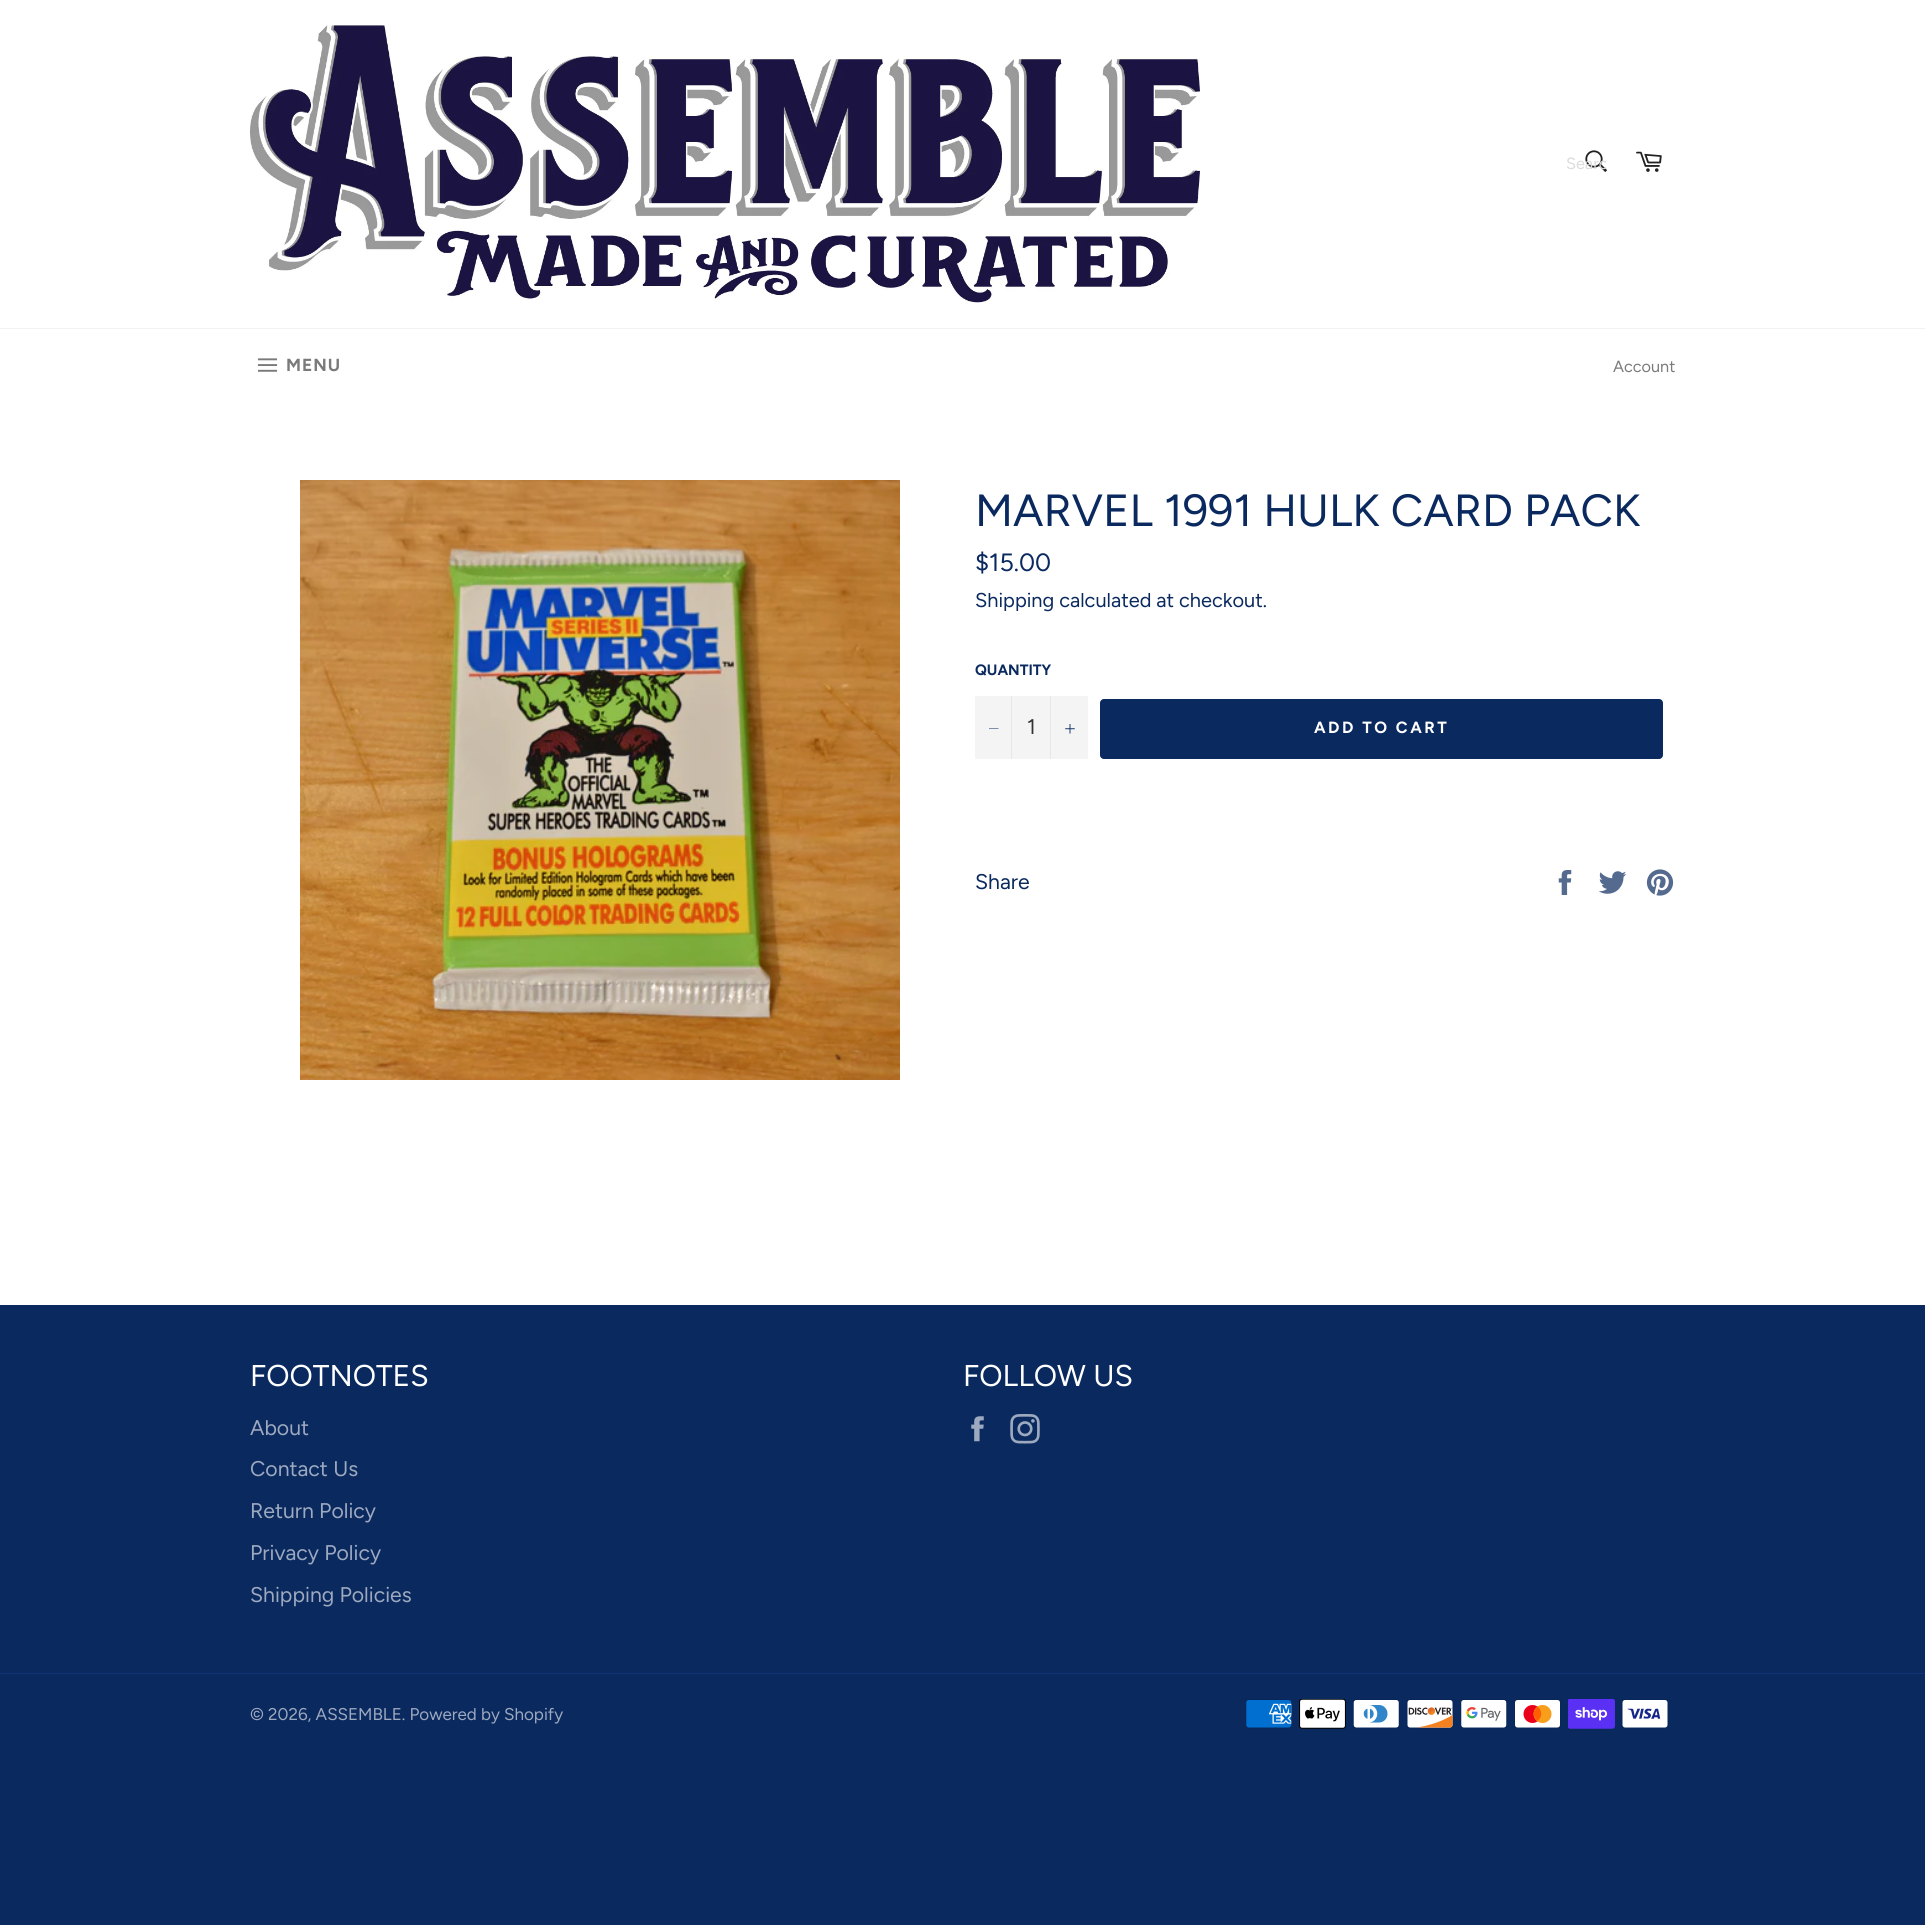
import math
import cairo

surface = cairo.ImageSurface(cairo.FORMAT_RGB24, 1925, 1925)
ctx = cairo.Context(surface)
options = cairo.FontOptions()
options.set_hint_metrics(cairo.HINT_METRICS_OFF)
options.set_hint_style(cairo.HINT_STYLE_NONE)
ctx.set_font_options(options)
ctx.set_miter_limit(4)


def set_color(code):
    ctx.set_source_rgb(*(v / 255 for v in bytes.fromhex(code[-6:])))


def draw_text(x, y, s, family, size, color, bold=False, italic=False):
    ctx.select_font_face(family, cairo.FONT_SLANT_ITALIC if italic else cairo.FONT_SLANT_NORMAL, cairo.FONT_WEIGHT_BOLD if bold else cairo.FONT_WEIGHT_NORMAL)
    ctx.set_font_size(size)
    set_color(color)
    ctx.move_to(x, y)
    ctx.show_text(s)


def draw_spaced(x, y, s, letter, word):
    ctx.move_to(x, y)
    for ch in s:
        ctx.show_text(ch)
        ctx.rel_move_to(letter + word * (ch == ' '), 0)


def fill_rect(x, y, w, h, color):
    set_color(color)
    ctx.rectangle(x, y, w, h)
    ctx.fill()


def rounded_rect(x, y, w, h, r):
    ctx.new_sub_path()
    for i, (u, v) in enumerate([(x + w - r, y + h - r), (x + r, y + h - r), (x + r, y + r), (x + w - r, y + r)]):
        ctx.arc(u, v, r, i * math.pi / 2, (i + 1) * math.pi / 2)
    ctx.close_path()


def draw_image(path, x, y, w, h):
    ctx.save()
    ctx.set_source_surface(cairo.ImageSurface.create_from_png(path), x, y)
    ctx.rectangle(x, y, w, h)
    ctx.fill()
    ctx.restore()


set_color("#0a295f")
ctx.paint()
fill_rect(0, 0, 1925, 1305, "#ffffff")
draw_image("assets/img1.png", 250, 25, 950, 278)
draw_image("assets/img2.png", 1585, 150, 22, 22)
ctx.save()
ctx.rectangle(1566, 154, 40, 19)
ctx.clip()
draw_text(1566, 169, "Searc", "Figtree", 16.25, "#dbdbdb")
ctx.restore()
draw_image("assets/img3.png", 1636, 151, 26, 21)
fill_rect(0, 328, 1925, 1, "#f2f2f2")
draw_image("assets/img4.png", 257, 358, 21, 14)
ctx.select_font_face("Figtree", cairo.FONT_SLANT_NORMAL, cairo.FONT_WEIGHT_BOLD)
ctx.set_font_size(17.5)
set_color("#7a7a7a")
draw_spaced(286, 371, "MENU", 1, 0)
draw_text(1613, 372, "Account", "Figtree", 16.25, "#7a7a7a")
draw_image("assets/img5.png", 300, 480, 600, 600)
draw_text(975, 526, "MARVEL 1991 HULK CARD PACK", "Figtree", 45, "#0a295f")
draw_text(975, 571, "$15.00", "Figtree", 25, "#0a295f")
draw_text(975, 607, "Shipping calculated at checkout.", "Figtree", 20, "#0a295f")
draw_text(975, 675, "QUANTITY", "Figtree", 15, "#0a295f", bold=True)
fill_rect(975, 696, 113, 63, "#f4f4f4")
fill_rect(1011, 696, 1, 63, "#e7e7e7")
set_color("#0a295f")
ctx.set_fill_rule(cairo.FILL_RULE_EVEN_ODD)
ctx.new_path()
ctx.move_to(998.5, 728.5)
ctx.line_to(998.5, 729)
ctx.line_to(989, 729)
ctx.line_to(989, 728.5)
ctx.close_path()
ctx.fill()
draw_text(1027, 734, "1", "Figtree", 21.25, "#333333")
fill_rect(1050, 696, 1, 63, "#e7e7e7")
draw_image("assets/img6.png", 1065, 724, 10, 10)
set_color("#0a295f")
rounded_rect(1100, 699, 563, 60, 4)
ctx.fill()
ctx.select_font_face("Figtree", cairo.FONT_SLANT_NORMAL, cairo.FONT_WEIGHT_BOLD)
ctx.set_font_size(16.25)
set_color("#ffffff")
draw_spaced(1314, 733, "ADD TO CART", 2.5, 0)
draw_text(975, 889, "Share", "Figtree", 21.25, "#0a295f")
draw_image("assets/img7.png", 1558, 870, 14, 25)
draw_image("assets/img8.png", 1599, 871, 28, 23)
draw_image("assets/img9.png", 1646, 869, 28, 27)
draw_text(250, 1386, "FOOTNOTES", "Figtree", 30, "#ffffff")
draw_text(250, 1435, "About", "Figtree", 21.25, "#9da9bf")
draw_text(250, 1476, "Contact Us", "Figtree", 21.25, "#9da9bf")
draw_text(250, 1518, "Return Policy", "Figtree", 21.25, "#9da9bf")
draw_text(250, 1560, "Privacy Policy", "Figtree", 21.25, "#9da9bf")
draw_text(250, 1602, "Shipping Policies", "Figtree", 21.25, "#9da9bf")
draw_text(963, 1386, "FOLLOW US", "Figtree", 30, "#ffffff")
draw_image("assets/img10.png", 971, 1416, 13, 26)
draw_image("assets/img11.png", 1010, 1414, 30, 30)
fill_rect(0, 1673, 1925, 1, "#0c3376")
draw_text(250, 1720, "© 2026, ASSEMBLE. Powered by Shopify", "Figtree", 17, "#9da9bf")
draw_image("assets/img12.png", 1245, 1699, 47, 30)
draw_image("assets/img13.png", 1299, 1699, 47, 30)
draw_image("assets/img14.png", 1353, 1699, 47, 30)
draw_image("assets/img15.png", 1406, 1699, 48, 30)
draw_image("assets/img16.png", 1460, 1699, 47, 30)
draw_image("assets/img17.png", 1514, 1699, 47, 30)
draw_image("assets/img18.png", 1568, 1699, 47, 30)
draw_image("assets/img19.png", 1621, 1699, 48, 30)
surface.write_to_png("output.png")
